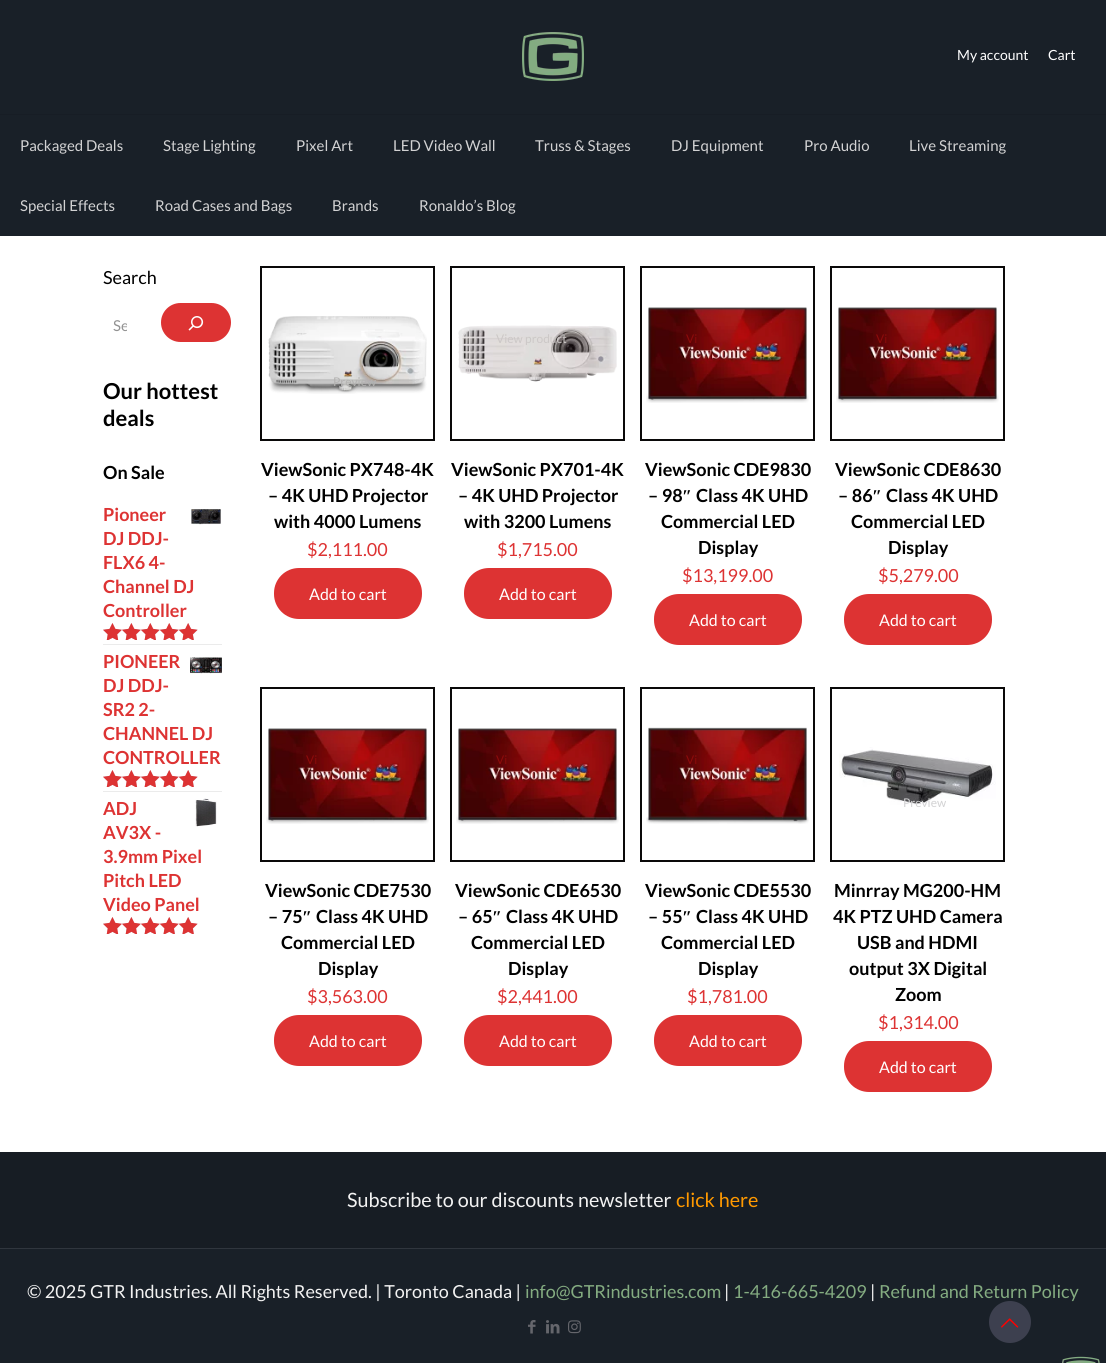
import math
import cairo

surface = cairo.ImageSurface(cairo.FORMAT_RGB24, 1106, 1363)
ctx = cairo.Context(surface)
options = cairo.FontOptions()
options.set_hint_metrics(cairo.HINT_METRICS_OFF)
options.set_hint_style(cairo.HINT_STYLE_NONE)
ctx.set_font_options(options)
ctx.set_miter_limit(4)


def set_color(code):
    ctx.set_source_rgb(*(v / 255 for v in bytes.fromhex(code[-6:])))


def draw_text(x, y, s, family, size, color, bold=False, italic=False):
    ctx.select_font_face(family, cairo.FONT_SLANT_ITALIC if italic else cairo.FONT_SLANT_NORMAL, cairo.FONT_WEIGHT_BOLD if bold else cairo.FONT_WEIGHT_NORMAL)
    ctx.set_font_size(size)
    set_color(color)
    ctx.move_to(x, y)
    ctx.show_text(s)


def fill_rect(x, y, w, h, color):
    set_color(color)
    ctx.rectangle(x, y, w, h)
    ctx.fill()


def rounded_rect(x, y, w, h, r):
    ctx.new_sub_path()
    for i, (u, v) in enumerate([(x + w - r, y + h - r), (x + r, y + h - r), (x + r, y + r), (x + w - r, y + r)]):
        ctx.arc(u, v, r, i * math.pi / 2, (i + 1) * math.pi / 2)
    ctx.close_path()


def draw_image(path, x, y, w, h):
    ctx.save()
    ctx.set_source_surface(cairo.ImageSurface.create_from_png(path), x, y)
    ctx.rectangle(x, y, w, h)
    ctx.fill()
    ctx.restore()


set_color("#ffffff")
ctx.paint()
fill_rect(0, 0, 1106, 236, "#192028")
fill_rect(0, 114, 1106, 1, "#171d25")
draw_image("assets/img1.png", 522, 32, 62, 49)
draw_text(957, 60, "My account", "Lato", 14, "#ffffff")
draw_text(1048, 60, "Cart", "Lato", 14, "#ffffff")
draw_text(20, 151, "Packaged Deals", "Lato", 15, "#d2d2d3")
draw_text(163, 151, "Stage Lighting", "Lato", 15, "#d2d2d3")
draw_text(296, 151, "Pixel Art", "Lato", 15, "#d2d2d3")
draw_text(393, 151, "LED Video Wall", "Lato", 15, "#d2d2d3")
draw_text(535, 151, "Truss & Stages", "Lato", 15, "#d2d2d3")
draw_text(671, 151, "DJ Equipment", "Lato", 15, "#d2d2d3")
draw_text(804, 151, "Pro Audio", "Lato", 15, "#d2d2d3")
draw_text(909, 151, "Live Streaming", "Lato", 15, "#d2d2d3")
draw_text(20, 211, "Special Effects", "Lato", 15, "#d2d2d3")
draw_text(155, 211, "Road Cases and Bags", "Lato", 15, "#d2d2d3")
draw_text(332, 211, "Brands", "Lato", 15, "#d2d2d3")
draw_text(419, 211, "Ronaldo’s Blog", "Lato", 15, "#d2d2d3")
draw_text(103, 284, "Search", "Lato", 18, "#000000")
ctx.save()
ctx.rectangle(113, 316, 14, 18)
ctx.clip()
draw_text(113, 331, "Se", "Lato", 15, "#929292")
ctx.restore()
set_color("#dd3333")
rounded_rect(161, 303, 70, 39, 19.5)
ctx.fill()
draw_image("assets/img2.png", 188, 316, 16, 15)
draw_text(103, 399, "Our hottest", "Lato", 22, "#000000", bold=True)
draw_text(103, 426, "deals", "Lato", 22, "#000000", bold=True)
draw_text(103, 479, "On Sale", "Lato", 18, "#000000", bold=True)
fill_rect(103, 644, 119, 1, "#ebebeb")
draw_text(103, 521, "Pioneer", "Lato", 18, "#dd3333", bold=True)
draw_image("assets/img3.png", 190, 509, 31, 16)
draw_text(103, 545, "DJ DDJ-", "Lato", 18, "#dd3333", bold=True)
draw_text(103, 569, "FLX6 4-", "Lato", 18, "#dd3333", bold=True)
draw_text(103, 593, "Channel DJ", "Lato", 18, "#dd3333", bold=True)
draw_text(103, 617, "Controller", "Lato", 18, "#dd3333", bold=True)
draw_image("assets/img4.png", 103, 623, 95, 17)
draw_image("assets/img5.png", 103, 623, 95, 17)
fill_rect(103, 791, 119, 1, "#ebebeb")
draw_text(103, 668, "PIONEER", "Lato", 18, "#dd3333", bold=True)
draw_image("assets/img6.png", 190, 657, 32, 17)
draw_text(103, 692, "DJ DDJ-", "Lato", 18, "#dd3333", bold=True)
draw_text(103, 716, "SR2 2-", "Lato", 18, "#dd3333", bold=True)
draw_text(103, 740, "CHANNEL DJ", "Lato", 18, "#dd3333", bold=True)
draw_text(103, 764, "CONTROLLER", "Lato", 18, "#dd3333", bold=True)
draw_image("assets/img4.png", 103, 770, 95, 17)
draw_image("assets/img5.png", 103, 770, 95, 17)
draw_text(103, 815, "ADJ", "Lato", 18, "#dd3333", bold=True)
draw_image("assets/img7.png", 195, 798, 22, 29)
draw_text(103, 839, "AV3X -", "Lato", 18, "#dd3333", bold=True)
draw_text(103, 863, "3.9mm Pixel", "Lato", 18, "#dd3333", bold=True)
draw_text(103, 887, "Pitch LED", "Lato", 18, "#dd3333", bold=True)
draw_text(103, 911, "Video Panel", "Lato", 18, "#dd3333", bold=True)
draw_image("assets/img4.png", 103, 917, 95, 17)
draw_image("assets/img5.png", 103, 917, 95, 17)
ctx.rectangle(261, 267, 173, 173)
set_color("#0a0909")
ctx.stroke()
draw_image("assets/img8.png", 268, 316, 159, 78)
draw_text(333, 386, "Preview", "Lato", 12, "#b3b2b1")
draw_text(261, 476, "ViewSonic PX748-4K", "Lato", 18, "#000000", bold=True)
draw_text(268, 502, "– 4K UHD Projector", "Lato", 18, "#000000", bold=True)
draw_text(274, 528, "with 4000 Lumens", "Lato", 18, "#000000", bold=True)
draw_text(307, 556, "$2,111.00", "Lato", 18, "#dd3333")
rounded_rect(274, 568, 148, 51, 25)
ctx.fill()
draw_text(309, 600, "Add to cart", "Lato", 16, "#ffffff")
ctx.rectangle(451, 267, 173, 173)
set_color("#0a0909")
ctx.stroke()
draw_image("assets/img9.png", 458, 325, 159, 57)
draw_text(496, 343, "View product", "Lato", 12, "#ccc8c7")
draw_text(451, 476, "ViewSonic PX701-4K", "Lato", 18, "#000000", bold=True)
draw_text(458, 502, "– 4K UHD Projector", "Lato", 18, "#000000", bold=True)
draw_text(464, 528, "with 3200 Lumens", "Lato", 18, "#000000", bold=True)
draw_text(497, 556, "$1,715.00", "Lato", 18, "#dd3333")
rounded_rect(464, 568, 148, 51, 25)
ctx.fill()
draw_text(499, 600, "Add to cart", "Lato", 16, "#ffffff")
ctx.rectangle(641, 267, 173, 173)
set_color("#0a0909")
ctx.stroke()
draw_image("assets/img10.png", 646, 307, 163, 96)
draw_text(686, 343, "Vi", "Lato", 12, "#8d0b0b")
draw_text(645, 476, "ViewSonic CDE9830", "Lato", 18, "#000000", bold=True)
draw_text(648, 502, "– 98", "Lato", 18, "#000000", bold=True)
draw_text(682, 502, "″", "Liberation Serif", 18, "#000000", bold=True)
draw_text(696, 502, "Class 4K UHD", "Lato", 18, "#000000", bold=True)
draw_text(661, 528, "Commercial LED", "Lato", 18, "#000000", bold=True)
draw_text(698, 554, "Display", "Lato", 18, "#000000", bold=True)
draw_text(682, 582, "$13,199.00", "Lato", 18, "#dd3333")
rounded_rect(654, 594, 148, 51, 25)
ctx.fill()
draw_text(689, 626, "Add to cart", "Lato", 16, "#ffffff")
ctx.rectangle(831, 267, 173, 173)
set_color("#0a0909")
ctx.stroke()
draw_image("assets/img11.png", 836, 307, 163, 96)
draw_text(876, 343, "Vi", "Lato", 12, "#8d0b0b")
draw_text(835, 476, "ViewSonic CDE8630", "Lato", 18, "#000000", bold=True)
draw_text(838, 502, "– 86", "Lato", 18, "#000000", bold=True)
draw_text(872, 502, "″", "Liberation Serif", 18, "#000000", bold=True)
draw_text(886, 502, "Class 4K UHD", "Lato", 18, "#000000", bold=True)
draw_text(851, 528, "Commercial LED", "Lato", 18, "#000000", bold=True)
draw_text(888, 554, "Display", "Lato", 18, "#000000", bold=True)
draw_text(878, 582, "$5,279.00", "Lato", 18, "#dd3333")
rounded_rect(844, 594, 148, 51, 25)
ctx.fill()
draw_text(879, 626, "Add to cart", "Lato", 16, "#ffffff")
ctx.rectangle(261, 688, 173, 173)
set_color("#0a0909")
ctx.stroke()
draw_image("assets/img12.png", 266, 728, 163, 96)
draw_text(306, 764, "Vi", "Lato", 12, "#8d0b0b")
draw_text(265, 897, "ViewSonic CDE7530", "Lato", 18, "#000000", bold=True)
draw_text(268, 923, "– 75", "Lato", 18, "#000000", bold=True)
draw_text(302, 923, "″", "Liberation Serif", 18, "#000000", bold=True)
draw_text(316, 923, "Class 4K UHD", "Lato", 18, "#000000", bold=True)
draw_text(281, 949, "Commercial LED", "Lato", 18, "#000000", bold=True)
draw_text(318, 975, "Display", "Lato", 18, "#000000", bold=True)
draw_text(307, 1003, "$3,563.00", "Lato", 18, "#dd3333")
rounded_rect(274, 1015, 148, 51, 25)
ctx.fill()
draw_text(309, 1047, "Add to cart", "Lato", 16, "#ffffff")
ctx.rectangle(451, 688, 173, 173)
set_color("#0a0909")
ctx.stroke()
draw_image("assets/img12.png", 456, 728, 163, 96)
draw_text(496, 764, "Vi", "Lato", 12, "#8d0b0b")
draw_text(455, 897, "ViewSonic CDE6530", "Lato", 18, "#000000", bold=True)
draw_text(458, 923, "– 65", "Lato", 18, "#000000", bold=True)
draw_text(492, 923, "″", "Liberation Serif", 18, "#000000", bold=True)
draw_text(506, 923, "Class 4K UHD", "Lato", 18, "#000000", bold=True)
draw_text(471, 949, "Commercial LED", "Lato", 18, "#000000", bold=True)
draw_text(508, 975, "Display", "Lato", 18, "#000000", bold=True)
draw_text(497, 1003, "$2,441.00", "Lato", 18, "#dd3333")
rounded_rect(464, 1015, 148, 51, 25)
ctx.fill()
draw_text(499, 1047, "Add to cart", "Lato", 16, "#ffffff")
ctx.rectangle(641, 688, 173, 173)
set_color("#0a0909")
ctx.stroke()
draw_image("assets/img13.png", 646, 727, 163, 97)
draw_text(686, 764, "Vi", "Lato", 12, "#8d0b0b")
draw_text(645, 897, "ViewSonic CDE5530", "Lato", 18, "#000000", bold=True)
draw_text(648, 923, "– 55", "Lato", 18, "#000000", bold=True)
draw_text(682, 923, "″", "Liberation Serif", 18, "#000000", bold=True)
draw_text(696, 923, "Class 4K UHD", "Lato", 18, "#000000", bold=True)
draw_text(661, 949, "Commercial LED", "Lato", 18, "#000000", bold=True)
draw_text(698, 975, "Display", "Lato", 18, "#000000", bold=True)
draw_text(687, 1003, "$1,781.00", "Lato", 18, "#dd3333")
rounded_rect(654, 1015, 148, 51, 25)
ctx.fill()
draw_text(689, 1047, "Add to cart", "Lato", 16, "#ffffff")
ctx.rectangle(831, 688, 173, 173)
set_color("#0a0909")
ctx.stroke()
draw_image("assets/img14.png", 839, 747, 157, 58)
draw_text(903, 807, "Preview", "Lato", 12, "#d2d2d3")
draw_text(834, 897, "Minrray MG200-HM", "Lato", 18, "#000000", bold=True)
draw_text(833, 923, "4K PTZ UHD Camera", "Lato", 18, "#000000", bold=True)
draw_text(857, 949, "USB and HDMI", "Lato", 18, "#000000", bold=True)
draw_text(849, 975, "output 3X Digital", "Lato", 18, "#000000", bold=True)
draw_text(895, 1001, "Zoom", "Lato", 18, "#000000", bold=True)
draw_text(878, 1029, "$1,314.00", "Lato", 18, "#dd3333")
rounded_rect(844, 1041, 148, 51, 25)
ctx.fill()
draw_text(879, 1073, "Add to cart", "Lato", 16, "#ffffff")
fill_rect(0, 1249, 1106, 114, "#192028")
draw_image("assets/img15.png", 1062, 1356, 38, 7)
fill_rect(0, 1152, 1106, 96, "#171d24")
draw_text(347, 1207, "Subscribe to our discounts newsletter", "Lato", 19.75, "#f2f2f2")
draw_text(676, 1207, "click here", "Lato", 19.75, "#ff9900")
fill_rect(0, 1248, 1106, 1, "#30363e")
draw_text(27, 1298, "© 2025 GTR Industries. All Rights Reserved. | Toronto Canada |", "Lato", 18, "#f2f2f2")
draw_text(525, 1298, "info@GTRindustries.com", "Lato", 18, "#84ac81")
draw_text(724, 1298, "|", "Lato", 18, "#f2f2f2")
draw_text(733, 1298, "1-416-665-4209", "Lato", 18, "#84ac81")
draw_text(870, 1298, "|", "Lato", 18, "#f2f2f2")
draw_text(879, 1298, "Refund and Return Policy", "Lato", 18, "#84ac81")
draw_image("assets/img16.png", 528, 1320, 8, 14)
draw_image("assets/img17.png", 546, 1320, 14, 14)
draw_image("assets/img18.png", 568, 1320, 13, 14)
set_color("#3d404f")
ctx.arc(1010, 1322, 21, 0, 2 * math.pi)
ctx.fill()
draw_image("assets/img19.png", 1001, 1318, 18, 10)
surface.write_to_png("output.png")
